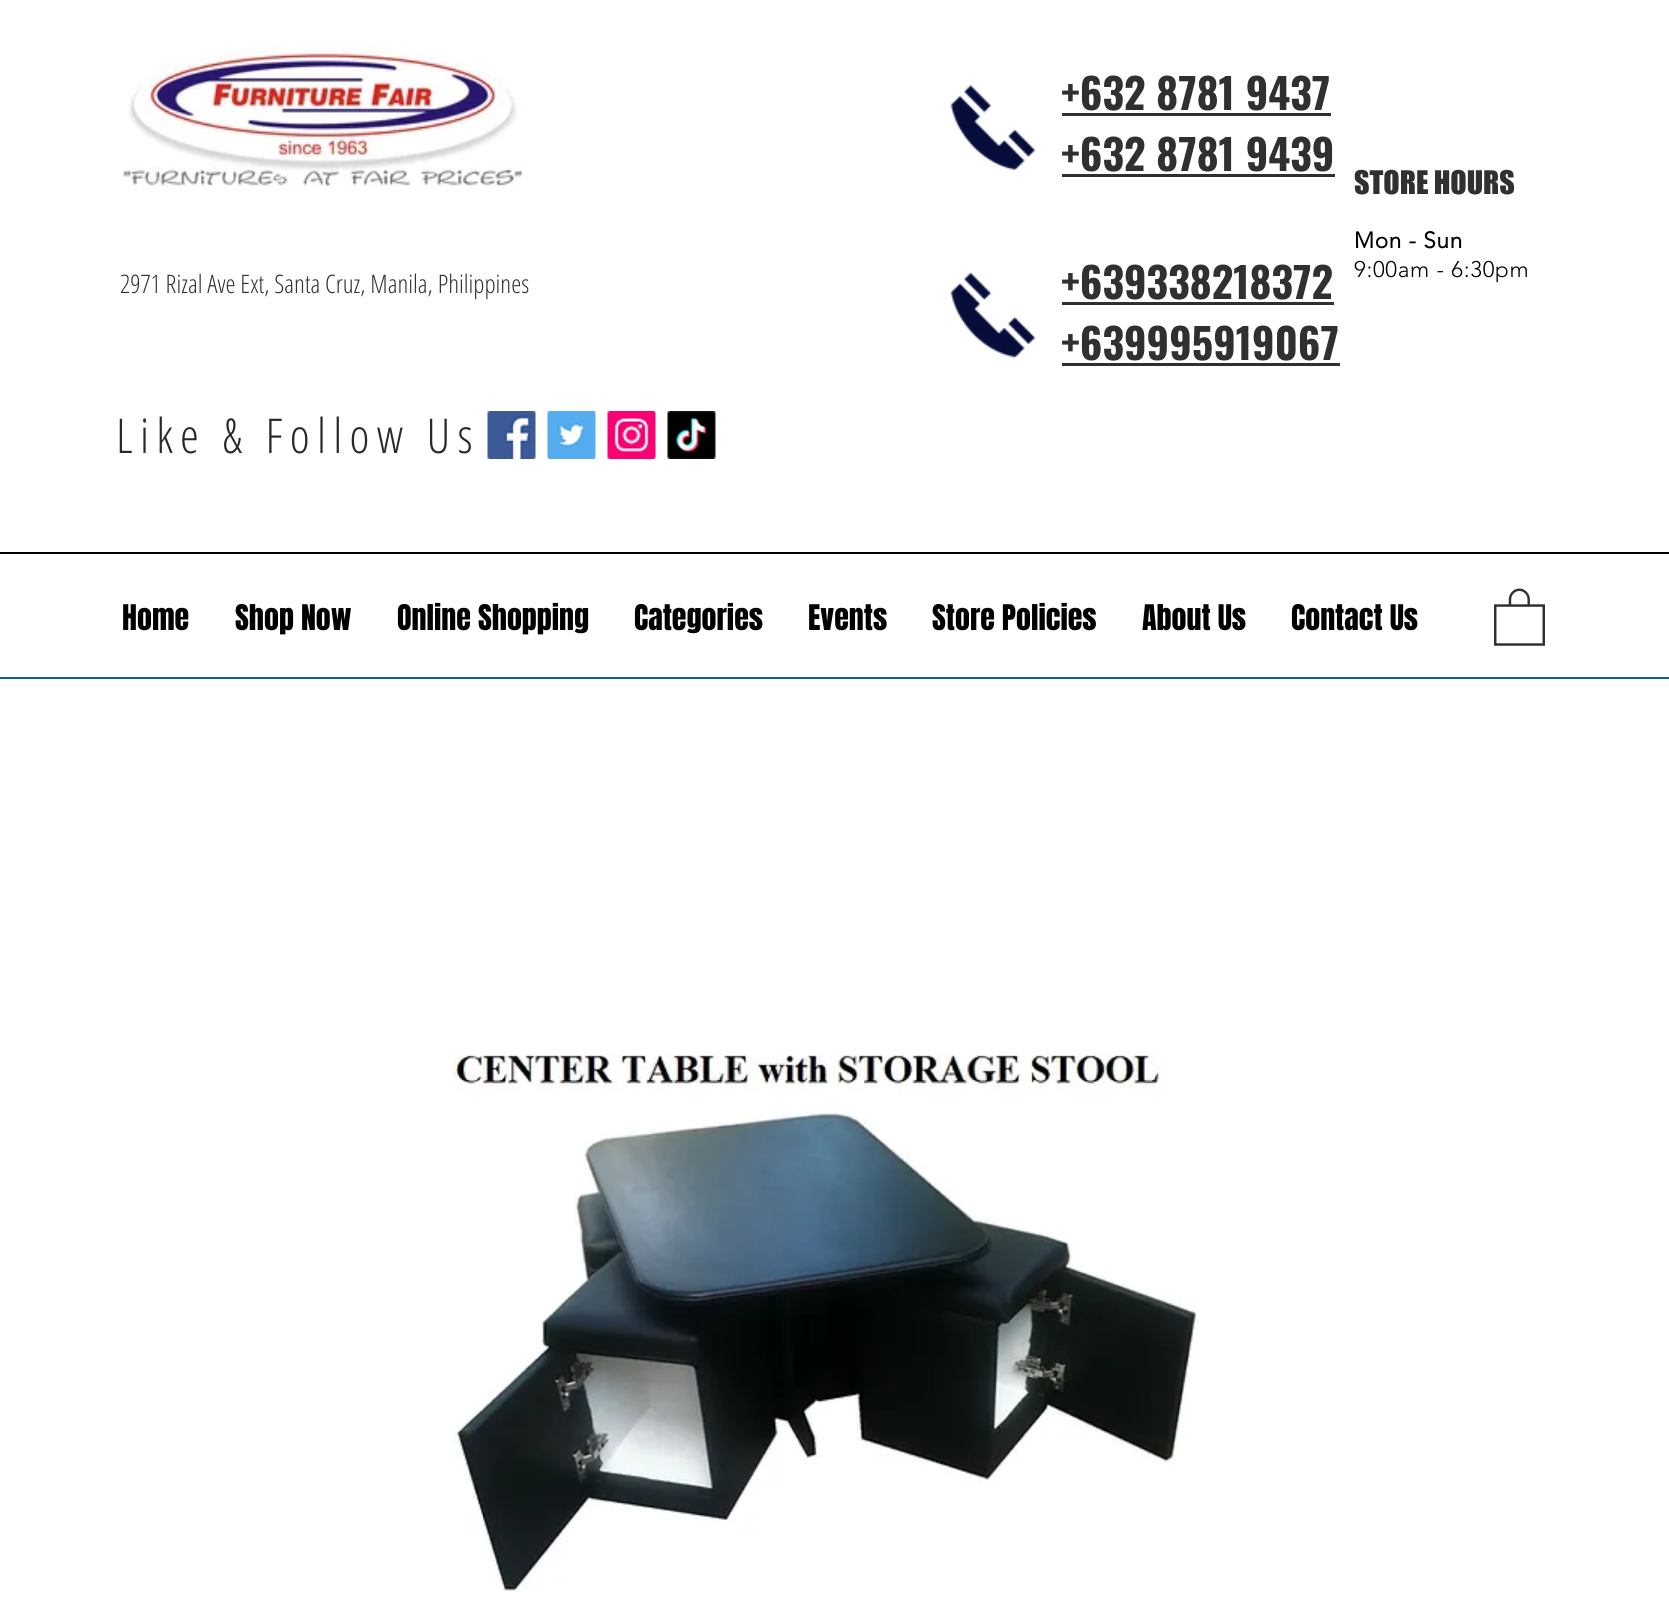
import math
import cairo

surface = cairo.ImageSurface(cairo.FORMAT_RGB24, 1669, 1598)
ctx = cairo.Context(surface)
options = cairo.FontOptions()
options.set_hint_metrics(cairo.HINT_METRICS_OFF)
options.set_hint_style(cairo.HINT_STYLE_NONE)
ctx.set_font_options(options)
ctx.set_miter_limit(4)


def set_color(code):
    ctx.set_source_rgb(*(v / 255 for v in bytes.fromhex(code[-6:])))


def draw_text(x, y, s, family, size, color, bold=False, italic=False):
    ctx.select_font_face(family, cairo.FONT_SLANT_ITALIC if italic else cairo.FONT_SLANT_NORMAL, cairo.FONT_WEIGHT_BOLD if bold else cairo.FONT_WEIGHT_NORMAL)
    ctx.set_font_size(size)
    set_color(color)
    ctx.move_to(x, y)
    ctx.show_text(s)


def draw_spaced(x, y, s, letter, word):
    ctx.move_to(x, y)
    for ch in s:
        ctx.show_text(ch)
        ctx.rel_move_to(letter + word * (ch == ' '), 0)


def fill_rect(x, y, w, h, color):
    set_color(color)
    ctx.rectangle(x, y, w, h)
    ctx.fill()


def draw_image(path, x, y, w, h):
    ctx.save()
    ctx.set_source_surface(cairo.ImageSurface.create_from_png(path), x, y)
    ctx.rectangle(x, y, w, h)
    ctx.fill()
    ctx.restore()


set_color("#ffffff")
ctx.paint()
draw_image("assets/img1.png", 122, 45, 401, 142)
draw_image("assets/img2.png", 950, 85, 86, 85)
draw_text(1061, 110, "+632 8781 9437", "Oswald", 42, "#303030", bold=True)
fill_rect(1062, 113, 269, 3, "#303030")
draw_text(1061, 171, "+632 8781 9439", "Oswald", 42, "#303030", bold=True)
fill_rect(1062, 174, 273, 3, "#303030")
draw_text(1354, 194, "STORE HOURS", "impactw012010", 30, "#303030")
draw_text(120, 293, "2971 Rizal Ave Ext, Santa Cruz, Manila, Philippines", "Open Sans Condensed Light", 25.5, "#303030")
draw_image("assets/img3.png", 950, 272, 86, 86)
draw_text(1061, 299, "+639338218372", "Oswald", 42, "#303030", bold=True)
fill_rect(1062, 302, 272, 3, "#303030")
ctx.select_font_face("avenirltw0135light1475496", cairo.FONT_SLANT_NORMAL, cairo.FONT_WEIGHT_BOLD)
ctx.set_font_size(22.5)
set_color("#000000")
draw_spaced(1354, 248, "Mon - Sun", 0.7, 0)
ctx.select_font_face("avenirltw0135light1475496 Light")
draw_spaced(1354, 277, "9:00am - 6:30pm", 0.7, 0)
draw_text(1061, 360, "+639995919067", "Oswald", 42, "#303030", bold=True)
fill_rect(1062, 363, 278, 3, "#303030")
ctx.select_font_face("Open Sans Condensed Light")
ctx.set_font_size(48)
set_color("#292929")
draw_spaced(116, 453, "Like & Follow Us", 7.25, 0)
draw_image("assets/img4.png", 487, 411, 49, 48)
draw_image("assets/img5.png", 547, 411, 49, 48)
draw_image("assets/img6.png", 607, 411, 49, 48)
draw_image("assets/img7.png", 667, 411, 49, 48)
fill_rect(0, 552, 1669, 2, "#000000")
draw_text(122, 630, "Home", "Anton", 30, "#000000")
draw_text(235, 630, "Shop Now", "Anton", 30, "#000000")
draw_text(397, 630, "Online Shopping", "Anton", 30, "#000000")
draw_text(634, 630, "Categories", "Anton", 30, "#000000")
draw_text(808, 630, "Events", "Anton", 30, "#000000")
draw_text(932, 630, "Store Policies", "Anton", 30, "#000000")
draw_text(1142, 630, "About Us", "Anton", 30, "#000000")
draw_text(1291, 630, "Contact Us", "Anton", 30, "#000000")
draw_image("assets/img8.png", 1494, 588, 51, 58)
fill_rect(0, 677, 1669, 2, "#0f5ca0")
draw_image("assets/img9.png", 451, 1051, 748, 540)
surface.write_to_png("output.png")
